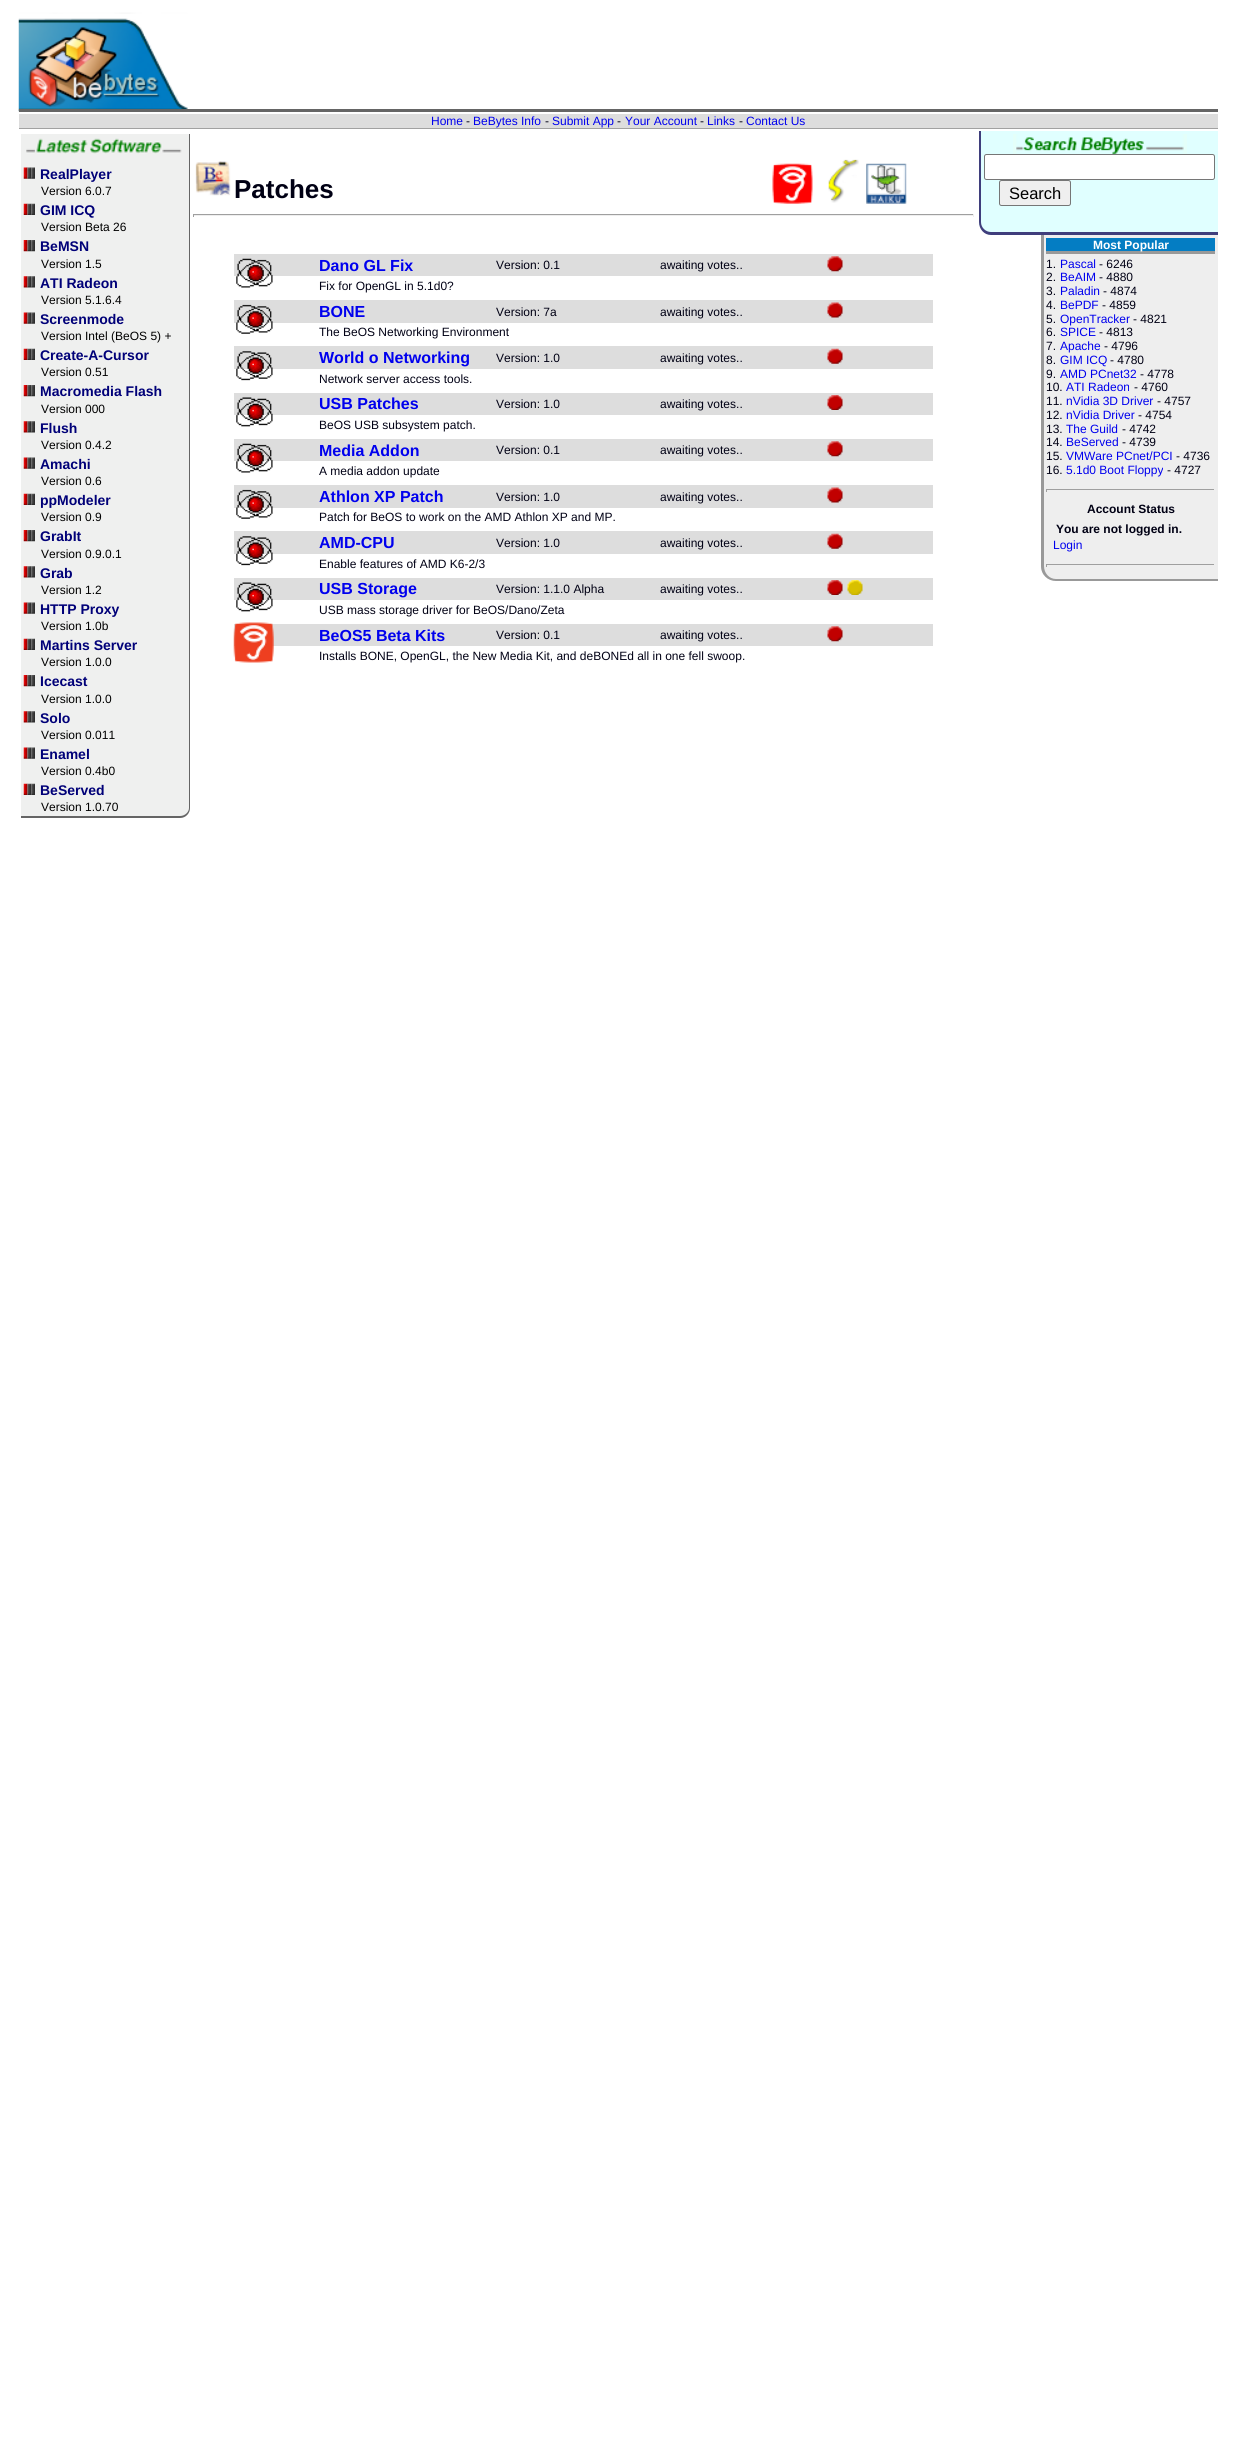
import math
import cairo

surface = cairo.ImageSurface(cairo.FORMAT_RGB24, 1236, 2453)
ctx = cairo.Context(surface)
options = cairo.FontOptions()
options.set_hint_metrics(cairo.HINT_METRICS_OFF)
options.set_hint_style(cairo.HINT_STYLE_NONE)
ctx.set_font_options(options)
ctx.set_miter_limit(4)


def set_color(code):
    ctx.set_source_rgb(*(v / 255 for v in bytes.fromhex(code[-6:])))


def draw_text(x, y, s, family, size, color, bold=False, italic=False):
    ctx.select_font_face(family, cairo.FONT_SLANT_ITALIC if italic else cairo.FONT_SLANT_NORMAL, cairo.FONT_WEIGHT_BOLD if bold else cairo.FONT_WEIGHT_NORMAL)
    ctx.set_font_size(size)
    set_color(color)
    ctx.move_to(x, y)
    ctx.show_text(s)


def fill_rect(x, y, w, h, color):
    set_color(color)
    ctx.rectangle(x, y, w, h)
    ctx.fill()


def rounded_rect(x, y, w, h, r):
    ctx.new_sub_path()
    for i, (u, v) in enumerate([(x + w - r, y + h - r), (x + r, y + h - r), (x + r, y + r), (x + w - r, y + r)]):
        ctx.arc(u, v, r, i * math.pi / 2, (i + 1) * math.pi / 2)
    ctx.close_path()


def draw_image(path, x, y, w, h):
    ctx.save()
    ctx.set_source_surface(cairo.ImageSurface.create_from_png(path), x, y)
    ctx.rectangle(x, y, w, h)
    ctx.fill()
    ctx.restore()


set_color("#ffffff")
ctx.paint()
draw_image("assets/img1.png", 18, 12, 170, 100)
fill_rect(19, 109, 1199, 3, "#656565")
draw_image("assets/img2.png", 53, 57, 18, 3)
fill_rect(19, 114, 1199, 14, "#dddddd")
fill_rect(19, 128, 1199, 1, "#a1a1a1")
draw_text(431, 125, "Home", "Liberation Sans", 12, "#0000ee")
draw_text(466, 125, "-", "Liberation Sans", 12, "#000014")
draw_text(473, 125, "BeBytes Info", "Liberation Sans", 12, "#0000ee")
draw_text(545, 125, "-", "Liberation Sans", 12, "#000014")
draw_text(552, 125, "Submit App", "Liberation Sans", 12, "#0000ee")
draw_text(617, 125, "-", "Liberation Sans", 12, "#000014")
draw_text(625, 125, "Your Account", "Liberation Sans", 12, "#0000ee")
draw_text(700, 125, "-", "Liberation Sans", 12, "#000014")
draw_text(707, 125, "Links", "Liberation Sans", 12, "#0000ee")
draw_text(739, 125, "-", "Liberation Sans", 12, "#000014")
draw_text(746, 125, "Contact Us", "Liberation Sans", 12, "#0000ee")
set_color("#eff0ef")
ctx.new_path()
ctx.move_to(21, 134)
ctx.line_to(190, 134)
ctx.line_to(190, 808)
ctx.curve_to(190, 813.5, 185.5, 818, 180, 818)
ctx.line_to(21, 818)
ctx.close_path()
ctx.fill()
set_color("#656565")
ctx.set_fill_rule(cairo.FILL_RULE_EVEN_ODD)
ctx.new_path()
ctx.move_to(21, 134)
ctx.line_to(190, 134)
ctx.line_to(190, 808)
ctx.curve_to(190, 813, 186, 818, 180, 818)
ctx.line_to(21, 818)
ctx.close_path()
ctx.move_to(21, 134)
ctx.line_to(189, 134)
ctx.line_to(189, 808)
ctx.curve_to(189, 812, 185, 816, 180, 816)
ctx.line_to(21, 816)
ctx.close_path()
ctx.fill()
draw_image("assets/img3.png", 26, 138, 156, 16)
draw_image("assets/img4.png", 23, 167, 5, 12)
draw_image("assets/img5.png", 27, 167, 5, 12)
draw_image("assets/img6.png", 31, 167, 4, 12)
draw_text(40, 179, "RealPlayer", "Liberation Sans", 14, "#000078", bold=True)
draw_text(41, 195, "Version 6.0.7", "Liberation Sans", 12, "#000000")
draw_image("assets/img7.png", 23, 203, 5, 12)
draw_image("assets/img8.png", 27, 203, 5, 12)
draw_image("assets/img9.png", 31, 203, 4, 12)
draw_text(40, 215, "GIM ICQ", "Liberation Sans", 14, "#000078", bold=True)
draw_text(41, 231, "Version Beta 26", "Liberation Sans", 12, "#000000")
draw_image("assets/img10.png", 23, 240, 5, 12)
draw_image("assets/img11.png", 27, 240, 5, 12)
draw_image("assets/img12.png", 31, 240, 4, 12)
draw_text(40, 251, "BeMSN", "Liberation Sans", 14, "#000078", bold=True)
draw_text(41, 268, "Version 1.5", "Liberation Sans", 12, "#000000")
draw_image("assets/img13.png", 23, 276, 5, 12)
draw_image("assets/img14.png", 27, 276, 5, 12)
draw_image("assets/img15.png", 31, 276, 4, 12)
draw_text(40, 288, "ATI Radeon", "Liberation Sans", 14, "#000078", bold=True)
draw_text(41, 304, "Version 5.1.6.4", "Liberation Sans", 12, "#000000")
draw_image("assets/img4.png", 23, 312, 5, 12)
draw_image("assets/img5.png", 27, 312, 5, 12)
draw_image("assets/img6.png", 31, 312, 4, 12)
draw_text(40, 324, "Screenmode", "Liberation Sans", 14, "#000078", bold=True)
draw_text(41, 340, "Version Intel (BeOS 5) +", "Liberation Sans", 12, "#000000")
draw_image("assets/img7.png", 23, 348, 5, 12)
draw_image("assets/img8.png", 27, 348, 5, 12)
draw_image("assets/img9.png", 31, 348, 4, 12)
draw_text(40, 360, "Create-A-Cursor", "Liberation Sans", 14, "#000078", bold=True)
draw_text(41, 376, "Version 0.51", "Liberation Sans", 12, "#000000")
draw_image("assets/img10.png", 23, 385, 5, 12)
draw_image("assets/img11.png", 27, 385, 5, 12)
draw_image("assets/img12.png", 31, 385, 4, 12)
draw_text(40, 396, "Macromedia Flash", "Liberation Sans", 14, "#000078", bold=True)
draw_text(41, 413, "Version 000", "Liberation Sans", 12, "#000000")
draw_image("assets/img13.png", 23, 421, 5, 12)
draw_image("assets/img14.png", 27, 421, 5, 12)
draw_image("assets/img15.png", 31, 421, 4, 12)
draw_text(40, 433, "Flush", "Liberation Sans", 14, "#000078", bold=True)
draw_text(41, 449, "Version 0.4.2", "Liberation Sans", 12, "#000000")
draw_image("assets/img4.png", 23, 457, 5, 12)
draw_image("assets/img5.png", 27, 457, 5, 12)
draw_image("assets/img6.png", 31, 457, 4, 12)
draw_text(40, 469, "Amachi", "Liberation Sans", 14, "#000078", bold=True)
draw_text(41, 485, "Version 0.6", "Liberation Sans", 12, "#000000")
draw_image("assets/img7.png", 23, 493, 5, 12)
draw_image("assets/img8.png", 27, 493, 5, 12)
draw_image("assets/img9.png", 31, 493, 4, 12)
draw_text(40, 505, "ppModeler", "Liberation Sans", 14, "#000078", bold=True)
draw_text(41, 521, "Version 0.9", "Liberation Sans", 12, "#000000")
draw_image("assets/img10.png", 23, 530, 5, 12)
draw_image("assets/img11.png", 27, 530, 5, 12)
draw_image("assets/img12.png", 31, 530, 4, 12)
draw_text(40, 541, "GrabIt", "Liberation Sans", 14, "#000078", bold=True)
draw_text(41, 558, "Version 0.9.0.1", "Liberation Sans", 12, "#000000")
draw_image("assets/img13.png", 23, 566, 5, 12)
draw_image("assets/img14.png", 27, 566, 5, 12)
draw_image("assets/img15.png", 31, 566, 4, 12)
draw_text(40, 578, "Grab", "Liberation Sans", 14, "#000078", bold=True)
draw_text(41, 594, "Version 1.2", "Liberation Sans", 12, "#000000")
draw_image("assets/img4.png", 23, 602, 5, 12)
draw_image("assets/img5.png", 27, 602, 5, 12)
draw_image("assets/img6.png", 31, 602, 4, 12)
draw_text(40, 614, "HTTP Proxy", "Liberation Sans", 14, "#000078", bold=True)
draw_text(41, 630, "Version 1.0b", "Liberation Sans", 12, "#000000")
draw_image("assets/img7.png", 23, 638, 5, 12)
draw_image("assets/img8.png", 27, 638, 5, 12)
draw_image("assets/img9.png", 31, 638, 4, 12)
draw_text(40, 650, "Martins Server", "Liberation Sans", 14, "#000078", bold=True)
draw_text(41, 666, "Version 1.0.0", "Liberation Sans", 12, "#000000")
draw_image("assets/img10.png", 23, 675, 5, 12)
draw_image("assets/img11.png", 27, 675, 5, 12)
draw_image("assets/img12.png", 31, 675, 4, 12)
draw_text(40, 686, "Icecast", "Liberation Sans", 14, "#000078", bold=True)
draw_text(41, 703, "Version 1.0.0", "Liberation Sans", 12, "#000000")
draw_image("assets/img13.png", 23, 711, 5, 12)
draw_image("assets/img14.png", 27, 711, 5, 12)
draw_image("assets/img15.png", 31, 711, 4, 12)
draw_text(40, 723, "Solo", "Liberation Sans", 14, "#000078", bold=True)
draw_text(41, 739, "Version 0.011", "Liberation Sans", 12, "#000000")
draw_image("assets/img4.png", 23, 747, 5, 12)
draw_image("assets/img5.png", 27, 747, 5, 12)
draw_image("assets/img6.png", 31, 747, 4, 12)
draw_text(40, 759, "Enamel", "Liberation Sans", 14, "#000078", bold=True)
draw_text(41, 775, "Version 0.4b0", "Liberation Sans", 12, "#000000")
draw_image("assets/img7.png", 23, 783, 5, 12)
draw_image("assets/img8.png", 27, 783, 5, 12)
draw_image("assets/img9.png", 31, 783, 4, 12)
draw_text(40, 795, "BeServed", "Liberation Sans", 14, "#000078", bold=True)
draw_text(41, 811, "Version 1.0.70", "Liberation Sans", 12, "#000000")
draw_image("assets/img16.png", 195, 161, 36, 35)
draw_text(234, 198, "Patches", "Liberation Sans", 26, "#000014", bold=True)
draw_image("assets/img17.png", 772, 163, 41, 41)
draw_image("assets/img18.png", 828, 159, 31, 44)
draw_image("assets/img19.png", 866, 163, 41, 41)
fill_rect(193, 214, 781, 1, "#9f9f9f")
fill_rect(973, 214, 1, 3, "#eeeeee")
fill_rect(193, 215, 781, 1, "#eeeeee")
fill_rect(193, 214, 1, 3, "#9f9f9f")
fill_rect(234, 254, 699, 22, "#dddddd")
draw_image("assets/img20.png", 236, 258, 37, 30)
draw_text(319, 271, "Dano GL Fix", "Liberation Sans", 16, "#0000ee", bold=True)
draw_text(496, 269, "Version: 0.1", "Liberation Sans", 12, "#000014")
draw_text(660, 269, "awaiting votes..", "Liberation Sans", 12, "#000014")
draw_image("assets/img21.png", 827, 256, 16, 16)
draw_text(319, 290, "Fix for OpenGL in 5.1d0?", "Liberation Sans", 12, "#000014")
fill_rect(234, 300, 699, 23, "#dddddd")
draw_image("assets/img22.png", 236, 304, 37, 30)
draw_text(319, 317, "BONE", "Liberation Sans", 16, "#0000ee", bold=True)
draw_text(496, 316, "Version: 7a", "Liberation Sans", 12, "#000014")
draw_text(660, 316, "awaiting votes..", "Liberation Sans", 12, "#000014")
draw_image("assets/img23.png", 827, 302, 16, 16)
draw_text(319, 336, "The BeOS Networking Environment", "Liberation Sans", 12, "#000014")
fill_rect(234, 346, 699, 23, "#dddddd")
draw_image("assets/img24.png", 236, 351, 37, 30)
draw_text(319, 363, "World o Networking", "Liberation Sans", 16, "#0000ee", bold=True)
draw_text(496, 362, "Version: 1.0", "Liberation Sans", 12, "#000014")
draw_text(660, 362, "awaiting votes..", "Liberation Sans", 12, "#000014")
draw_image("assets/img25.png", 827, 348, 16, 16)
draw_text(319, 383, "Network server access tools.", "Liberation Sans", 12, "#000014")
fill_rect(234, 393, 699, 22, "#dddddd")
draw_image("assets/img26.png", 236, 397, 37, 30)
draw_text(319, 409, "USB Patches", "Liberation Sans", 16, "#0000ee", bold=True)
draw_text(496, 408, "Version: 1.0", "Liberation Sans", 12, "#000014")
draw_text(660, 408, "awaiting votes..", "Liberation Sans", 12, "#000014")
draw_image("assets/img27.png", 827, 395, 16, 15)
draw_text(319, 429, "BeOS USB subsystem patch.", "Liberation Sans", 12, "#000014")
fill_rect(234, 439, 699, 22, "#dddddd")
draw_image("assets/img20.png", 236, 443, 37, 30)
draw_text(319, 456, "Media Addon", "Liberation Sans", 16, "#0000ee", bold=True)
draw_text(496, 454, "Version: 0.1", "Liberation Sans", 12, "#000014")
draw_text(660, 454, "awaiting votes..", "Liberation Sans", 12, "#000014")
draw_image("assets/img28.png", 827, 441, 16, 16)
draw_text(319, 475, "A media addon update", "Liberation Sans", 12, "#000014")
fill_rect(234, 485, 699, 23, "#dddddd")
draw_image("assets/img22.png", 236, 489, 37, 30)
draw_text(319, 502, "Athlon XP Patch", "Liberation Sans", 16, "#0000ee", bold=True)
draw_text(496, 501, "Version: 1.0", "Liberation Sans", 12, "#000014")
draw_text(660, 501, "awaiting votes..", "Liberation Sans", 12, "#000014")
draw_image("assets/img23.png", 827, 487, 16, 16)
draw_text(319, 521, "Patch for BeOS to work on the AMD Athlon XP and MP.", "Liberation Sans", 12, "#000014")
fill_rect(234, 531, 699, 23, "#dddddd")
draw_image("assets/img24.png", 236, 536, 37, 30)
draw_text(319, 548, "AMD-CPU", "Liberation Sans", 16, "#0000ee", bold=True)
draw_text(496, 547, "Version: 1.0", "Liberation Sans", 12, "#000014")
draw_text(660, 547, "awaiting votes..", "Liberation Sans", 12, "#000014")
draw_image("assets/img25.png", 827, 533, 16, 16)
draw_text(319, 568, "Enable features of AMD K6-2/3", "Liberation Sans", 12, "#000014")
fill_rect(234, 578, 699, 22, "#dddddd")
draw_image("assets/img29.png", 236, 582, 37, 30)
draw_text(319, 594, "USB Storage", "Liberation Sans", 16, "#0000ee", bold=True)
draw_text(496, 593, "Version: 1.1.0 Alpha", "Liberation Sans", 12, "#000014")
draw_text(660, 593, "awaiting votes..", "Liberation Sans", 12, "#000014")
draw_image("assets/img30.png", 827, 580, 16, 15)
draw_image("assets/img31.png", 847, 580, 16, 15)
draw_text(319, 614, "USB mass storage driver for BeOS/Dano/Zeta", "Liberation Sans", 12, "#000014")
fill_rect(234, 624, 699, 22, "#dddddd")
draw_image("assets/img32.png", 233, 622, 41, 41)
draw_text(319, 641, "BeOS5 Beta Kits", "Liberation Sans", 16, "#0000ee", bold=True)
draw_text(496, 639, "Version: 0.1", "Liberation Sans", 12, "#000014")
draw_text(660, 639, "awaiting votes..", "Liberation Sans", 12, "#000014")
draw_image("assets/img28.png", 827, 626, 16, 16)
draw_text(319, 660, "Installs BONE, OpenGL, the New Media Kit, and deBONEd all in one fell swoop.", "Liberation Sans", 12, "#000014")
set_color("#e0ffff")
ctx.new_path()
ctx.move_to(979, 131)
ctx.line_to(1218, 131)
ctx.line_to(1218, 235)
ctx.line_to(992, 235)
ctx.curve_to(985, 235, 979, 229, 979, 222)
ctx.close_path()
ctx.fill()
set_color("#3f3e7c")
ctx.new_path()
ctx.move_to(979, 131)
ctx.line_to(1218, 131)
ctx.line_to(1218, 235)
ctx.line_to(991, 235)
ctx.curve_to(984, 235, 979, 229, 979, 222)
ctx.close_path()
ctx.move_to(981, 131)
ctx.line_to(1218, 131)
ctx.line_to(1218, 232)
ctx.line_to(991, 232)
ctx.curve_to(986, 232, 981, 228, 981, 222)
ctx.close_path()
ctx.fill()
draw_image("assets/img33.png", 1013, 134, 174, 20)
set_color("#ffffff")
rounded_rect(984.5, 154.5, 230, 25, 2)
ctx.fill_preserve()
set_color("#767676")
ctx.set_line_width(1)
ctx.stroke()
set_color("#efefef")
rounded_rect(999.5, 180.5, 71, 25, 2)
ctx.fill_preserve()
set_color("#767676")
ctx.stroke()
draw_text(1009, 199, "Search", "Liberation Sans", 16.5, "#000000")
set_color("#eeeeee")
ctx.new_path()
ctx.move_to(1041, 235)
ctx.line_to(1218, 235)
ctx.line_to(1218, 581)
ctx.line_to(1056, 581)
ctx.curve_to(1047.5, 581, 1041, 574.5, 1041, 566)
ctx.close_path()
ctx.fill()
set_color("#999999")
ctx.new_path()
ctx.move_to(1041, 235)
ctx.line_to(1218, 235)
ctx.line_to(1218, 581)
ctx.line_to(1056, 581)
ctx.curve_to(1048, 581, 1041, 575, 1041, 566)
ctx.close_path()
ctx.move_to(1044, 235)
ctx.line_to(1218, 235)
ctx.line_to(1218, 579)
ctx.line_to(1056, 579)
ctx.curve_to(1049, 579, 1044, 573, 1044, 566)
ctx.close_path()
ctx.fill()
fill_rect(1046, 238, 169, 13, "#047dc3")
fill_rect(1046, 251, 169, 3, "#999999")
draw_text(1093, 249, "Most Popular", "Liberation Sans", 12, "#ffffff", bold=True)
draw_text(1046, 268, "1.", "Liberation Sans", 12, "#000014")
draw_text(1060, 268, "Pascal", "Liberation Sans", 12, "#0000ee")
draw_text(1099, 268, "- 6246", "Liberation Sans", 12, "#000014")
draw_text(1046, 281, "2.", "Liberation Sans", 12, "#000014")
draw_text(1060, 281, "BeAIM", "Liberation Sans", 12, "#0000ee")
draw_text(1099, 281, "- 4880", "Liberation Sans", 12, "#000014")
draw_text(1046, 295, "3.", "Liberation Sans", 12, "#000014")
draw_text(1060, 295, "Paladin", "Liberation Sans", 12, "#0000ee")
draw_text(1103, 295, "- 4874", "Liberation Sans", 12, "#000014")
draw_text(1046, 309, "4.", "Liberation Sans", 12, "#000014")
draw_text(1060, 309, "BePDF", "Liberation Sans", 12, "#0000ee")
draw_text(1102, 309, "- 4859", "Liberation Sans", 12, "#000014")
draw_text(1046, 323, "5.", "Liberation Sans", 12, "#000014")
draw_text(1060, 323, "OpenTracker", "Liberation Sans", 12, "#0000ee")
draw_text(1133, 323, "- 4821", "Liberation Sans", 12, "#000014")
draw_text(1046, 336, "6.", "Liberation Sans", 12, "#000014")
draw_text(1060, 336, "SPICE", "Liberation Sans", 12, "#0000ee")
draw_text(1099, 336, "- 4813", "Liberation Sans", 12, "#000014")
draw_text(1046, 350, "7.", "Liberation Sans", 12, "#000014")
draw_text(1060, 350, "Apache", "Liberation Sans", 12, "#0000ee")
draw_text(1104, 350, "- 4796", "Liberation Sans", 12, "#000014")
draw_text(1046, 364, "8.", "Liberation Sans", 12, "#000014")
draw_text(1060, 364, "GIM ICQ", "Liberation Sans", 12, "#0000ee")
draw_text(1110, 364, "- 4780", "Liberation Sans", 12, "#000014")
draw_text(1046, 378, "9.", "Liberation Sans", 12, "#000014")
draw_text(1060, 378, "AMD PCnet32", "Liberation Sans", 12, "#0000ee")
draw_text(1140, 378, "- 4778", "Liberation Sans", 12, "#000014")
draw_text(1046, 391, "10.", "Liberation Sans", 12, "#000014")
draw_text(1066, 391, "ATI Radeon", "Liberation Sans", 12, "#0000ee")
draw_text(1134, 391, "- 4760", "Liberation Sans", 12, "#000014")
draw_text(1046, 405, "11.", "Liberation Sans", 12, "#000014")
draw_text(1066, 405, "nVidia 3D Driver", "Liberation Sans", 12, "#0000ee")
draw_text(1157, 405, "- 4757", "Liberation Sans", 12, "#000014")
draw_text(1046, 419, "12.", "Liberation Sans", 12, "#000014")
draw_text(1066, 419, "nVidia Driver", "Liberation Sans", 12, "#0000ee")
draw_text(1138, 419, "- 4754", "Liberation Sans", 12, "#000014")
draw_text(1046, 433, "13.", "Liberation Sans", 12, "#000014")
draw_text(1066, 433, "The Guild", "Liberation Sans", 12, "#0000ee")
draw_text(1122, 433, "- 4742", "Liberation Sans", 12, "#000014")
draw_text(1046, 446, "14.", "Liberation Sans", 12, "#000014")
draw_text(1066, 446, "BeServed", "Liberation Sans", 12, "#0000ee")
draw_text(1122, 446, "- 4739", "Liberation Sans", 12, "#000014")
draw_text(1046, 460, "15.", "Liberation Sans", 12, "#000014")
draw_text(1066, 460, "VMWare PCnet/PCI", "Liberation Sans", 12, "#0000ee")
draw_text(1176, 460, "- 4736", "Liberation Sans", 12, "#000014")
draw_text(1046, 474, "16.", "Liberation Sans", 12, "#000014")
draw_text(1066, 474, "5.1d0 Boot Floppy", "Liberation Sans", 12, "#0000ee")
draw_text(1167, 474, "- 4727", "Liberation Sans", 12, "#000014")
fill_rect(1046, 489, 169, 1, "#9f9f9f")
fill_rect(1214, 489, 1, 3, "#eeeeee")
fill_rect(1046, 489, 1, 3, "#9f9f9f")
draw_text(1087, 513, "Account Status", "Liberation Sans", 12, "#000014", bold=True)
draw_text(1056, 533, "You are not logged in.", "Liberation Sans", 12, "#000014", bold=True)
draw_text(1053, 549, "Login", "Liberation Sans", 12, "#0000ee")
fill_rect(1046, 564, 169, 1, "#9f9f9f")
fill_rect(1214, 564, 1, 3, "#eeeeee")
fill_rect(1046, 564, 1, 3, "#9f9f9f")
surface.write_to_png("output.png")
